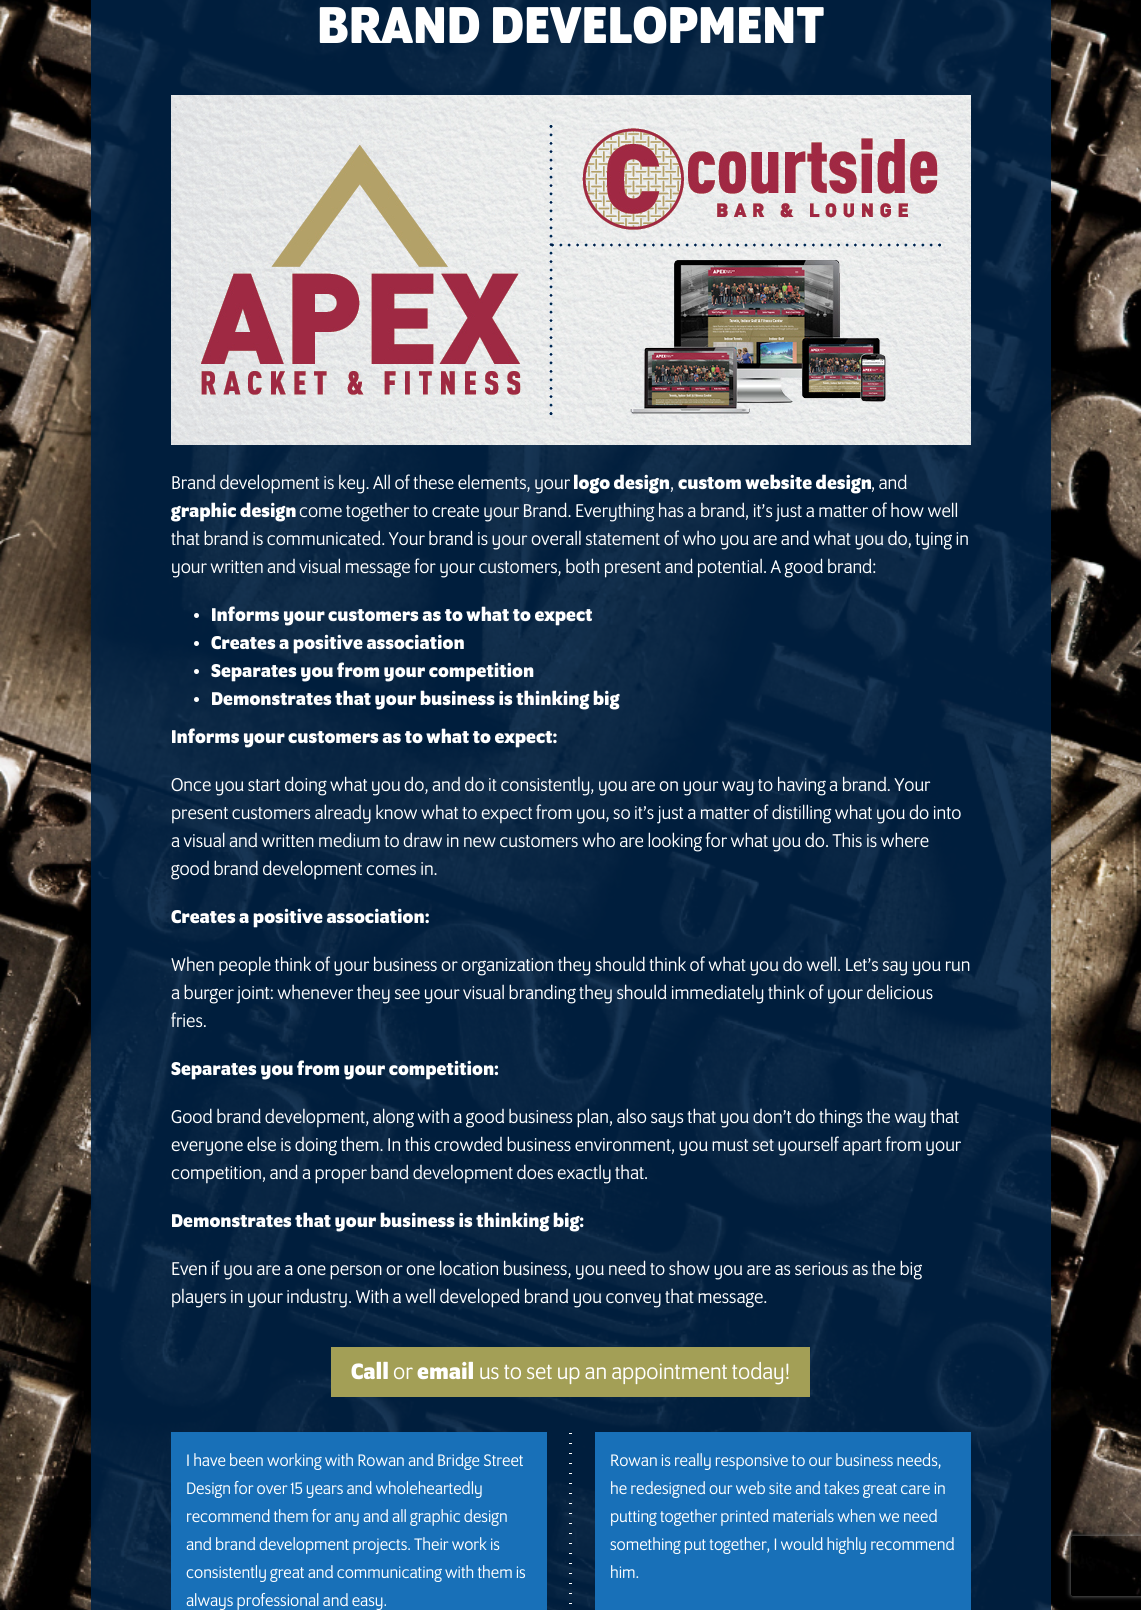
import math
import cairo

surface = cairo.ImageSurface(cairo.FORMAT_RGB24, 1141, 1610)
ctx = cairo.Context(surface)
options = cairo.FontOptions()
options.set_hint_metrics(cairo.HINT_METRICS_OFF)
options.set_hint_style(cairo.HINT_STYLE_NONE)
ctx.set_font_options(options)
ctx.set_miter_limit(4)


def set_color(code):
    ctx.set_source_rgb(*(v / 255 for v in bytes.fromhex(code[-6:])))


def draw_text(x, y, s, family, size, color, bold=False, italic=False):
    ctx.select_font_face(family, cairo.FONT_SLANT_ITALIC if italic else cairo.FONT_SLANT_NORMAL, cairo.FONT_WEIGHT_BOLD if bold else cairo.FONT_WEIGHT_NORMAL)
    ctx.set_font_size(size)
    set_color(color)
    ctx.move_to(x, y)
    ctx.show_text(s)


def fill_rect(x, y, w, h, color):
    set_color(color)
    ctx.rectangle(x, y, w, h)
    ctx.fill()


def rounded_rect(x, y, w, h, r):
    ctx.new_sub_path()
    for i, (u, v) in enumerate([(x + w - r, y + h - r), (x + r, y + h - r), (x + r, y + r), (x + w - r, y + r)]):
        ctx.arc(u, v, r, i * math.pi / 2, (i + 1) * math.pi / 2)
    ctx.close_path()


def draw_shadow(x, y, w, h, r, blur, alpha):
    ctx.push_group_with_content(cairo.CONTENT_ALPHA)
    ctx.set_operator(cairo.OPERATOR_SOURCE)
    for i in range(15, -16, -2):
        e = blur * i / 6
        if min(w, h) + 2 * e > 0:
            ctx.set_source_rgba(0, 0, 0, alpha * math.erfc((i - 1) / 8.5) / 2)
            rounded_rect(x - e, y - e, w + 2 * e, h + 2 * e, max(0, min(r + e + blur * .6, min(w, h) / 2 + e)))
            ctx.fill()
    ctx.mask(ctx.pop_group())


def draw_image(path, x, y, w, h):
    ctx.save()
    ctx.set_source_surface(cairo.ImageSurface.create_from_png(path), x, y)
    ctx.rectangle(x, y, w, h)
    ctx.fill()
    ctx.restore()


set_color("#ffffff")
ctx.paint()
draw_image("assets/img1.png", 0, 0, 1141, 1610)
ctx.set_source_rgba(0, 0.133, 0.267, 0.9)
ctx.rectangle(91, 0, 960, 1610)
ctx.fill()
draw_text(317, 43, "BRAND DEVELOPMENT", "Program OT", 56, "#ffffff", bold=True)
draw_image("assets/img2.png", 171, 95, 800, 350)
draw_text(171, 489, "Brand development is key. All of these elements, your", "Program OT", 20, "#ffffff")
draw_text(573, 489, "logo design", "Program OT", 20, "#ffffff", bold=True)
draw_text(670, 489, ",", "Program OT", 20, "#ffffff")
draw_text(678, 489, "custom website design", "Program OT", 20, "#ffffff", bold=True)
draw_text(871, 489, ", and", "Program OT", 20, "#ffffff")
draw_text(171, 517, "graphic design", "Program OT", 20, "#ffffff", bold=True)
draw_text(299, 517, "come together to create your Brand. Everything has a brand, it’s just a matter of how well", "Program OT", 20, "#ffffff")
draw_text(171, 545, "that brand is communicated. Your brand is your overall statement of who you are and what you do, tying in", "Program OT", 20, "#ffffff")
draw_text(171, 573, "your written and visual message for your customers, both present and potential. A good brand:", "Program OT", 20, "#ffffff")
ctx.new_path()
ctx.arc(196.5, 615.5, 2.5, 0, 2 * math.pi)
ctx.fill()
draw_text(211, 621, "Informs your customers as to what to expect", "Program OT", 20, "#ffffff", bold=True)
ctx.new_path()
ctx.arc(196.5, 643.5, 2.5, 0, 2 * math.pi)
ctx.fill()
draw_text(211, 649, "Creates a positive association", "Program OT", 20, "#ffffff", bold=True)
ctx.new_path()
ctx.arc(196.5, 671.5, 2.5, 0, 2 * math.pi)
ctx.fill()
draw_text(211, 677, "Separates you from your competition", "Program OT", 20, "#ffffff", bold=True)
ctx.new_path()
ctx.arc(196.5, 699.5, 2.5, 0, 2 * math.pi)
ctx.fill()
draw_text(211, 705, "Demonstrates that your business is thinking big", "Program OT", 20, "#ffffff", bold=True)
draw_text(171, 743, "Informs your customers as to what to expect:", "Program OT", 20, "#ffffff", bold=True)
draw_text(171, 791, "Once you start doing what you do, and do it consistently, you are on your way to having a brand. Your", "Program OT", 20, "#ffffff")
draw_text(171, 819, "present customers already know what to expect from you, so it’s just a matter of distilling what you do into", "Program OT", 20, "#ffffff")
draw_text(171, 847, "a visual and written medium to draw in new customers who are looking for what you do. This is where", "Program OT", 20, "#ffffff")
draw_text(171, 875, "good brand development comes in.", "Program OT", 20, "#ffffff")
draw_text(171, 923, "Creates a positive association:", "Program OT", 20, "#ffffff", bold=True)
draw_text(171, 971, "When people think of your business or organization they should think of what you do well. Let’s say you run", "Program OT", 20, "#ffffff")
draw_text(171, 999, "a burger joint: whenever they see your visual branding they should immediately think of your delicious", "Program OT", 20, "#ffffff")
draw_text(171, 1027, "fries.", "Program OT", 20, "#ffffff")
draw_text(171, 1075, "Separates you from your competition:", "Program OT", 20, "#ffffff", bold=True)
draw_text(171, 1123, "Good brand development, along with a good business plan, also says that you don’t do things the way that", "Program OT", 20, "#ffffff")
draw_text(171, 1151, "everyone else is doing them. In this crowded business environment, you must set yourself apart from your", "Program OT", 20, "#ffffff")
draw_text(171, 1179, "competition, and a proper band development does exactly that.", "Program OT", 20, "#ffffff")
draw_text(171, 1227, "Demonstrates that your business is thinking big:", "Program OT", 20, "#ffffff", bold=True)
draw_text(171, 1275, "Even if you are a one person or one location business, you need to show you are as serious as the big", "Program OT", 20, "#ffffff")
draw_text(171, 1303, "players in your industry. With a well developed brand you convey that message.", "Program OT", 20, "#ffffff")
fill_rect(331, 1347, 479, 50, "#a39f56")
draw_text(351, 1379, "Call", "Program OT", 24, "#ffffff", bold=True)
draw_text(393, 1379, "or", "Program OT", 24, "#ffffff")
draw_text(417, 1379, "email", "Program OT", 24, "#ffffff", bold=True)
draw_text(479, 1379, "us to set up an appointment today!", "Program OT", 24, "#ffffff")
fill_rect(171, 1432, 376, 178, "#1870b8")
draw_text(186, 1466, "I have been working with Rowan and Bridge Street", "Program OT", 18, "#ffffff")
draw_text(186, 1494, "Design for over 15 years and wholeheartedly", "Program OT", 18, "#ffffff")
draw_text(186, 1522, "recommend them for any and all graphic design", "Program OT", 18, "#ffffff")
draw_text(186, 1550, "and brand development projects. Their work is", "Program OT", 18, "#ffffff")
draw_text(186, 1578, "consistently great and communicating with them is", "Program OT", 18, "#ffffff")
draw_text(186, 1606, "always professional and easy.", "Program OT", 18, "#ffffff")
draw_image("assets/img3.png", 569, 1433, 3, 171)
fill_rect(595, 1432, 376, 178, "#1870b8")
draw_text(610, 1466, "Rowan is really responsive to our business needs,", "Program OT", 18, "#ffffff")
draw_text(610, 1494, "he redesigned our web site and takes great care in", "Program OT", 18, "#ffffff")
draw_text(610, 1522, "putting together printed materials when we need", "Program OT", 18, "#ffffff")
draw_text(610, 1550, "something put together, I would highly recommend", "Program OT", 18, "#ffffff")
draw_text(610, 1578, "him.", "Program OT", 18, "#ffffff")
ctx.save()
ctx.set_fill_rule(cairo.FILL_RULE_EVEN_ODD)
ctx.new_path()
ctx.move_to(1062, 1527)
ctx.line_to(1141, 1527)
ctx.line_to(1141, 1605)
ctx.line_to(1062, 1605)
ctx.close_path()
ctx.move_to(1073, 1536)
ctx.line_to(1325, 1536)
ctx.curve_to(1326, 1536, 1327, 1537, 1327, 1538)
ctx.line_to(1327, 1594)
ctx.curve_to(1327, 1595, 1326, 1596, 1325, 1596)
ctx.line_to(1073, 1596)
ctx.curve_to(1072, 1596, 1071, 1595, 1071, 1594)
ctx.line_to(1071, 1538)
ctx.curve_to(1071, 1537, 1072, 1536, 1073, 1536)
ctx.close_path()
ctx.clip()
set_color("#808080")
draw_shadow(1071, 1536, 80, 60, 2, 2.5, 1)
ctx.restore()
surface.write_to_png("output.png")
